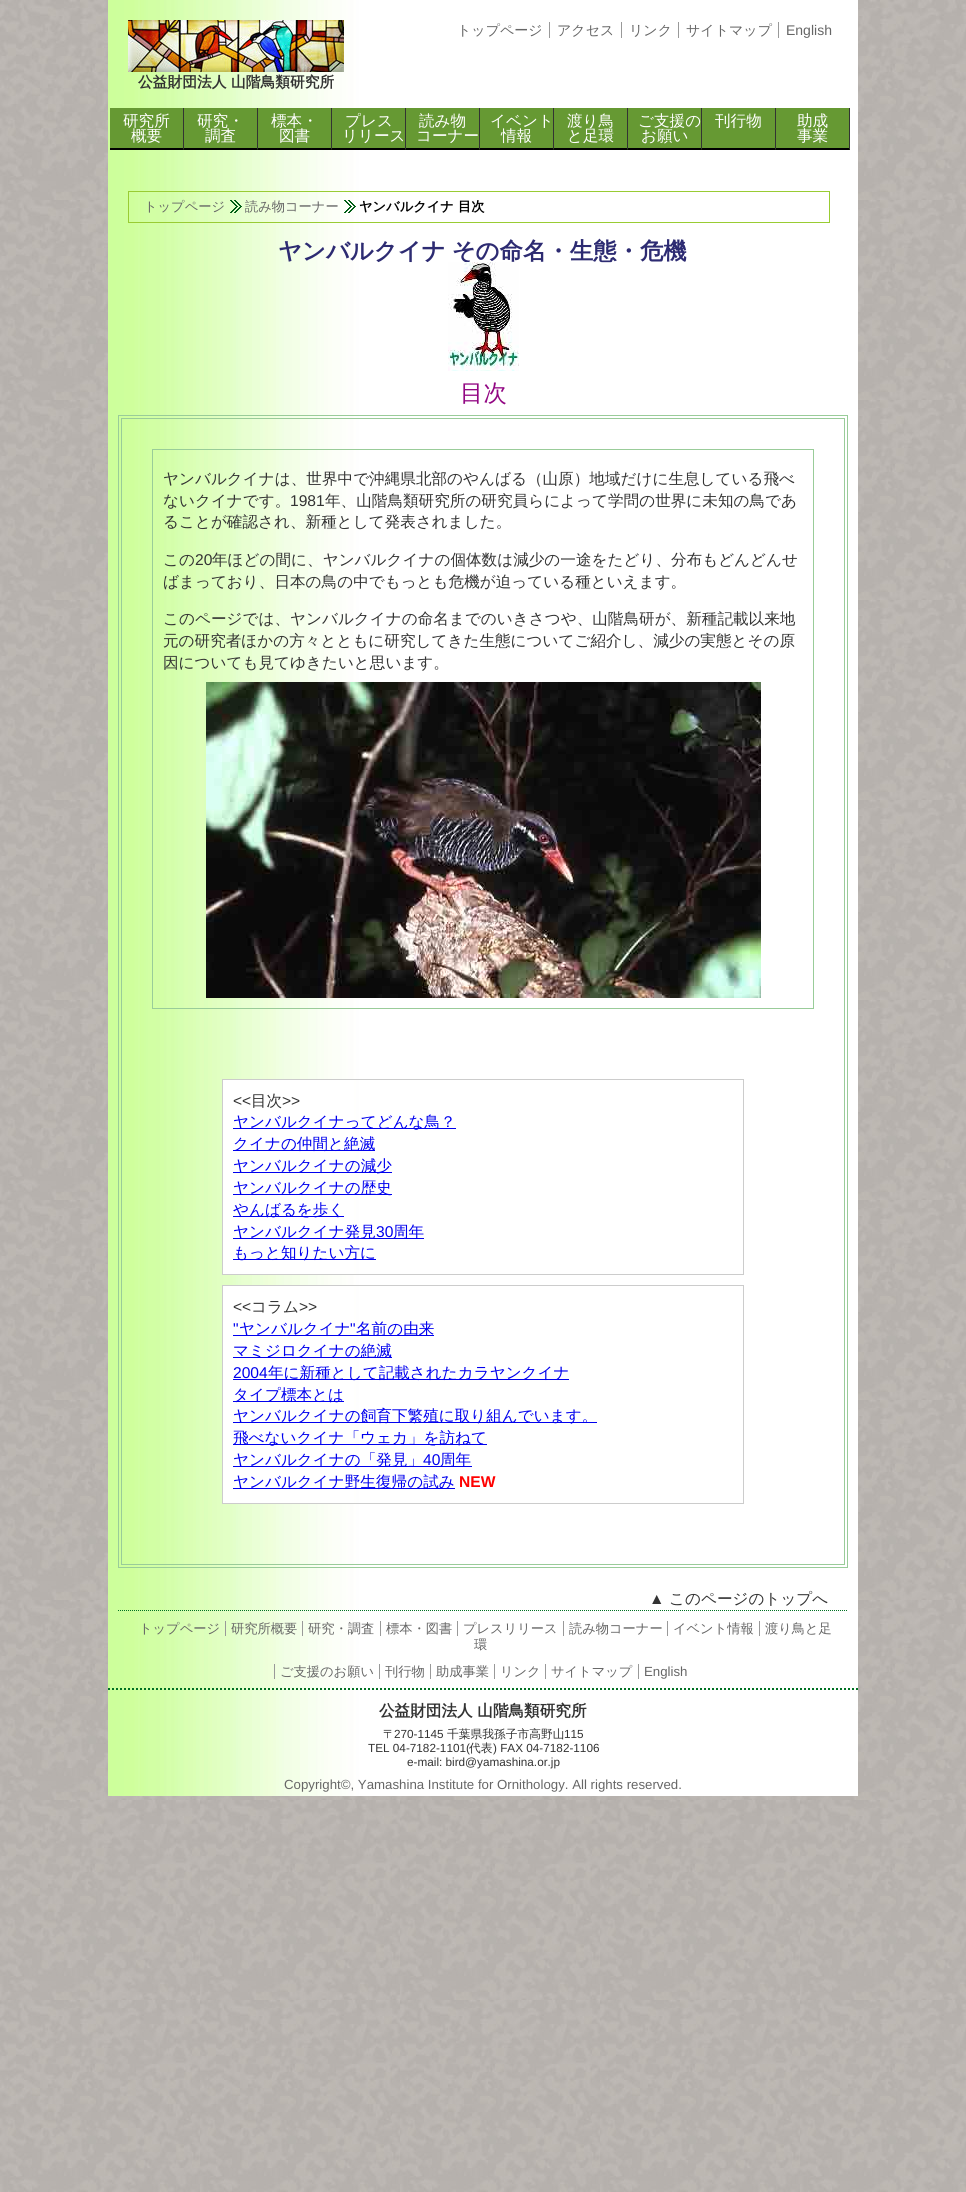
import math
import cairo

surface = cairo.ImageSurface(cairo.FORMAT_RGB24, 966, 2192)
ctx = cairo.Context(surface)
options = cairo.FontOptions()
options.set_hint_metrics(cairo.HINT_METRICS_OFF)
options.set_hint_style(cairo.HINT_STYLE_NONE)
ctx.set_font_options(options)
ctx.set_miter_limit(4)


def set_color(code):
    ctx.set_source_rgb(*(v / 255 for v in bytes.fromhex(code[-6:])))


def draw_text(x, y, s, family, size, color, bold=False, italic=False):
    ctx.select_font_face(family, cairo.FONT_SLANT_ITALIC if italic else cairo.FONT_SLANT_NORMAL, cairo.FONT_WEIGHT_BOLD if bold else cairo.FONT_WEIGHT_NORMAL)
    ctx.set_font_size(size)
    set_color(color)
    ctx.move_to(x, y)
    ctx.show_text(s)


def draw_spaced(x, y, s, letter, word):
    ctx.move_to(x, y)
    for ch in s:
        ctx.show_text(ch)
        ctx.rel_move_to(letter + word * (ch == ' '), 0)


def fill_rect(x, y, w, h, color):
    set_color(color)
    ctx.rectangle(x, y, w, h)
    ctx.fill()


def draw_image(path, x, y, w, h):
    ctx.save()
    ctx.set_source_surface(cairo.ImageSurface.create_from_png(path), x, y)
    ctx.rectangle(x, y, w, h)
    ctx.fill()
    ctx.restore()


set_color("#ffffff")
ctx.paint()
draw_image("assets/img1.png", 0, 0, 966, 2192)
draw_image("assets/img2.png", 108, 0, 750, 1796)
draw_text(457, 35, "トップページ", "WenQuanYi Zen Hei Medium", 14, "#666666")
draw_text(557, 35, "アクセス", "WenQuanYi Zen Hei Medium", 14, "#666666")
fill_rect(549, 22, 1, 16, "#999999")
draw_text(629, 35, "リンク", "WenQuanYi Zen Hei Medium", 14, "#666666")
fill_rect(621, 22, 1, 16, "#999999")
draw_text(686, 35, "サイトマップ", "WenQuanYi Zen Hei Medium", 14, "#666666")
fill_rect(678, 22, 1, 16, "#999999")
draw_text(786, 35, "English", "Liberation Sans", 14, "#666666")
fill_rect(778, 22, 1, 16, "#999999")
draw_image("assets/img3.png", 128, 20, 216, 52)
draw_text(138, 87, "公益財団法人 山階鳥類研究所", "WenQuanYi Zen Hei", 14.75, "#333333", bold=True)
fill_rect(110, 108, 740, 42, "#669933")
set_color("#333333")
ctx.new_path()
ctx.move_to(184, 108)
ctx.line_to(184, 150)
ctx.line_to(183, 148)
ctx.line_to(183, 108)
ctx.close_path()
ctx.fill()
set_color("#000000")
ctx.new_path()
ctx.move_to(184, 150)
ctx.line_to(110, 150)
ctx.line_to(110, 148)
ctx.line_to(183, 148)
ctx.close_path()
ctx.fill()
draw_text(123, 126, "研究所", "WenQuanYi Zen Hei Medium", 15.6, "#ffffff")
draw_text(131, 141, "概要", "WenQuanYi Zen Hei Medium", 15.6, "#ffffff")
set_color("#333333")
ctx.new_path()
ctx.move_to(258, 108)
ctx.line_to(258, 150)
ctx.line_to(257, 148)
ctx.line_to(257, 108)
ctx.close_path()
ctx.fill()
set_color("#000000")
ctx.new_path()
ctx.move_to(258, 150)
ctx.line_to(184, 150)
ctx.line_to(184, 148)
ctx.line_to(257, 148)
ctx.close_path()
ctx.fill()
draw_text(197, 126, "研究・", "WenQuanYi Zen Hei Medium", 15.6, "#ffffff")
draw_text(205, 141, "調査", "WenQuanYi Zen Hei Medium", 15.6, "#ffffff")
set_color("#333333")
ctx.new_path()
ctx.move_to(332, 108)
ctx.line_to(332, 150)
ctx.line_to(331, 148)
ctx.line_to(331, 108)
ctx.close_path()
ctx.fill()
set_color("#000000")
ctx.new_path()
ctx.move_to(332, 150)
ctx.line_to(258, 150)
ctx.line_to(258, 148)
ctx.line_to(331, 148)
ctx.close_path()
ctx.fill()
draw_text(271, 126, "標本・", "WenQuanYi Zen Hei Medium", 15.6, "#ffffff")
draw_text(279, 141, "図書", "WenQuanYi Zen Hei Medium", 15.6, "#ffffff")
set_color("#333333")
ctx.new_path()
ctx.move_to(406, 108)
ctx.line_to(406, 150)
ctx.line_to(405, 148)
ctx.line_to(405, 108)
ctx.close_path()
ctx.fill()
set_color("#000000")
ctx.new_path()
ctx.move_to(406, 150)
ctx.line_to(332, 150)
ctx.line_to(332, 148)
ctx.line_to(405, 148)
ctx.close_path()
ctx.fill()
draw_text(345, 126, "プレス", "WenQuanYi Zen Hei Medium", 15.6, "#ffffff")
draw_text(342, 141, "リリース", "WenQuanYi Zen Hei Medium", 15.6, "#ffffff")
set_color("#333333")
ctx.new_path()
ctx.move_to(480, 108)
ctx.line_to(480, 150)
ctx.line_to(479, 148)
ctx.line_to(479, 108)
ctx.close_path()
ctx.fill()
set_color("#000000")
ctx.new_path()
ctx.move_to(480, 150)
ctx.line_to(406, 150)
ctx.line_to(406, 148)
ctx.line_to(479, 148)
ctx.close_path()
ctx.fill()
draw_text(419, 126, "読み物", "WenQuanYi Zen Hei Medium", 15.6, "#ffffff")
draw_text(416, 141, "コーナー", "WenQuanYi Zen Hei Medium", 15.6, "#ffffff")
set_color("#333333")
ctx.new_path()
ctx.move_to(554, 108)
ctx.line_to(554, 150)
ctx.line_to(553, 148)
ctx.line_to(553, 108)
ctx.close_path()
ctx.fill()
set_color("#000000")
ctx.new_path()
ctx.move_to(554, 150)
ctx.line_to(480, 150)
ctx.line_to(480, 148)
ctx.line_to(553, 148)
ctx.close_path()
ctx.fill()
draw_text(490, 126, "イベント", "WenQuanYi Zen Hei Medium", 15.6, "#ffffff")
draw_text(501, 141, "情報", "WenQuanYi Zen Hei Medium", 15.6, "#ffffff")
set_color("#333333")
ctx.new_path()
ctx.move_to(628, 108)
ctx.line_to(628, 150)
ctx.line_to(627, 148)
ctx.line_to(627, 108)
ctx.close_path()
ctx.fill()
set_color("#000000")
ctx.new_path()
ctx.move_to(628, 150)
ctx.line_to(554, 150)
ctx.line_to(554, 148)
ctx.line_to(627, 148)
ctx.close_path()
ctx.fill()
draw_text(567, 126, "渡り鳥", "WenQuanYi Zen Hei Medium", 15.6, "#ffffff")
draw_text(567, 141, "と足環", "WenQuanYi Zen Hei Medium", 15.6, "#ffffff")
set_color("#333333")
ctx.new_path()
ctx.move_to(702, 108)
ctx.line_to(702, 150)
ctx.line_to(701, 148)
ctx.line_to(701, 108)
ctx.close_path()
ctx.fill()
set_color("#000000")
ctx.new_path()
ctx.move_to(702, 150)
ctx.line_to(628, 150)
ctx.line_to(628, 148)
ctx.line_to(701, 148)
ctx.close_path()
ctx.fill()
draw_text(638, 126, "ご支援の", "WenQuanYi Zen Hei Medium", 15.6, "#ffffff")
draw_text(641, 141, "お願い", "WenQuanYi Zen Hei Medium", 15.6, "#ffffff")
set_color("#333333")
ctx.new_path()
ctx.move_to(776, 108)
ctx.line_to(776, 150)
ctx.line_to(775, 148)
ctx.line_to(775, 108)
ctx.close_path()
ctx.fill()
set_color("#000000")
ctx.new_path()
ctx.move_to(776, 150)
ctx.line_to(702, 150)
ctx.line_to(702, 148)
ctx.line_to(775, 148)
ctx.close_path()
ctx.fill()
draw_text(715, 126, "刊行物", "WenQuanYi Zen Hei Medium", 15.6, "#ffffff")
set_color("#333333")
ctx.new_path()
ctx.move_to(850, 108)
ctx.line_to(850, 150)
ctx.line_to(849, 148)
ctx.line_to(849, 108)
ctx.close_path()
ctx.fill()
set_color("#000000")
ctx.new_path()
ctx.move_to(850, 150)
ctx.line_to(776, 150)
ctx.line_to(776, 148)
ctx.line_to(849, 148)
ctx.close_path()
ctx.fill()
draw_text(797, 126, "助成", "WenQuanYi Zen Hei Medium", 15.6, "#ffffff")
draw_text(797, 141, "事業", "WenQuanYi Zen Hei Medium", 15.6, "#ffffff")
ctx.rectangle(128.5, 191.5, 701, 31)
set_color("#99cc33")
ctx.set_line_width(1)
ctx.stroke()
draw_text(144, 211, "トップページ", "WenQuanYi Zen Hei Medium", 13.25, "#666666")
draw_image("assets/img4.png", 230, 200, 12, 13)
draw_text(245, 211, "読み物コーナー", "WenQuanYi Zen Hei Medium", 13.25, "#666666")
draw_image("assets/img5.png", 344, 200, 12, 13)
draw_text(359, 211, "ヤンバルクイナ 目次", "WenQuanYi Zen Hei", 13.25, "#000000", bold=True)
ctx.set_font_size(23.4)
set_color("#2d2b72")
draw_spaced(278, 259, "ヤンバルクイナ その命名・生態・危機", 0, -1)
draw_image("assets/img6.png", 448, 262, 71, 109)
draw_text(460, 401, "目次", "WenQuanYi Zen Hei Medium", 23.4, "#920783")
ctx.new_path()
ctx.move_to(118, 1610.5)
ctx.line_to(848, 1610.5)
set_color("#007123")
ctx.set_dash([1, 1])
ctx.stroke()
ctx.rectangle(118.5, 415.5, 729, 1152)
set_color("#99cc99")
ctx.set_dash([])
ctx.stroke()
ctx.rectangle(121.5, 418.5, 723, 1146)
ctx.stroke()
ctx.rectangle(152.5, 449.5, 661, 559)
ctx.stroke()
draw_text(163, 484, "ヤンバルクイナは、世界中で沖縄県北部のやんばる（山原）地域だけに生息している飛べ", "WenQuanYi Zen Hei Medium", 15.6, "#333333")
draw_text(163, 506, "ないクイナです。", "WenQuanYi Zen Hei Medium", 15.6, "#333333")
draw_text(290, 506, "1981", "Liberation Sans", 15.6, "#333333")
draw_text(325, 506, "年、山階鳥類研究所の研究員らによって学問の世界に未知の鳥であ", "WenQuanYi Zen Hei Medium", 15.6, "#333333")
draw_text(163, 527, "ることが確認され、新種として発表されました。", "WenQuanYi Zen Hei Medium", 15.6, "#333333")
draw_text(163, 565, "この", "WenQuanYi Zen Hei Medium", 15.6, "#333333")
draw_text(195, 565, "20", "Liberation Sans", 15.6, "#333333")
draw_text(212, 565, "年ほどの間に、ヤンバルクイナの個体数は減少の一途をたどり、分布もどんどんせ", "WenQuanYi Zen Hei Medium", 15.6, "#333333")
draw_text(163, 587, "ばまっており、日本の鳥の中でもっとも危機が迫っている種といえます。", "WenQuanYi Zen Hei Medium", 15.6, "#333333")
draw_text(163, 624, "このページでは、ヤンバルクイナの命名までのいきさつや、山階鳥研が、新種記載以来地", "WenQuanYi Zen Hei Medium", 15.6, "#333333")
draw_text(163, 646, "元の研究者ほかの方々とともに研究してきた生態についてご紹介し、減少の実態とその原", "WenQuanYi Zen Hei Medium", 15.6, "#333333")
draw_text(163, 668, "因についても見てゆきたいと思います。", "WenQuanYi Zen Hei Medium", 15.6, "#333333")
draw_image("assets/img7.png", 206, 682, 555, 316)
fill_rect(223, 1080, 131, 194, "#ffffff")
ctx.rectangle(222.5, 1079.5, 521, 195)
set_color("#cccccc")
ctx.stroke()
draw_text(233, 1106, "<<", "Liberation Sans", 15.6, "#333333")
draw_text(251, 1106, "目次", "WenQuanYi Zen Hei Medium", 15.6, "#333333")
draw_text(282, 1106, ">>", "Liberation Sans", 15.6, "#333333")
fill_rect(233, 1128, 223, 1, "#0000ee")
draw_text(233, 1127, "ヤンバルクイナってどんな鳥？", "WenQuanYi Zen Hei Medium", 15.6, "#0000ee")
fill_rect(233, 1150, 142, 1, "#0000ee")
draw_text(233, 1149, "クイナの仲間と絶滅", "WenQuanYi Zen Hei Medium", 15.6, "#0000ee")
fill_rect(233, 1172, 159, 1, "#0000ee")
draw_text(233, 1171, "ヤンバルクイナの減少", "WenQuanYi Zen Hei Medium", 15.6, "#0000ee")
fill_rect(233, 1194, 159, 1, "#0000ee")
draw_text(233, 1193, "ヤンバルクイナの歴史", "WenQuanYi Zen Hei Medium", 15.6, "#0000ee")
fill_rect(233, 1216, 111, 1, "#0000ee")
draw_text(233, 1215, "やんばるを歩く", "WenQuanYi Zen Hei Medium", 15.6, "#0000ee")
fill_rect(233, 1238, 191, 1, "#0000ee")
draw_text(233, 1237, "ヤンバルクイナ発見", "WenQuanYi Zen Hei Medium", 15.6, "#0000ee")
draw_text(376, 1237, "30", "Liberation Sans", 15.6, "#0000ee")
draw_text(393, 1237, "周年", "WenQuanYi Zen Hei Medium", 15.6, "#0000ee")
fill_rect(233, 1259, 143, 1, "#0000ee")
draw_text(233, 1258, "もっと知りたい方に", "WenQuanYi Zen Hei Medium", 15.6, "#0000ee")
fill_rect(223, 1286, 131, 217, "#ffffff")
ctx.rectangle(222.5, 1285.5, 521, 218)
set_color("#cccccc")
ctx.stroke()
draw_text(233, 1312, "<<", "Liberation Sans", 15.6, "#333333")
draw_text(251, 1312, "コラム", "WenQuanYi Zen Hei Medium", 15.6, "#333333")
draw_text(299, 1312, ">>", "Liberation Sans", 15.6, "#333333")
draw_text(233, 1334, "\"", "Liberation Sans", 15.6, "#0000ee")
fill_rect(233, 1335, 201, 1, "#0000ee")
draw_text(239, 1334, "ヤンバルクイナ", "WenQuanYi Zen Hei Medium", 15.6, "#0000ee")
draw_text(350, 1334, "\"", "Liberation Sans", 15.6, "#0000ee")
draw_text(356, 1334, "名前の由来", "WenQuanYi Zen Hei Medium", 15.6, "#0000ee")
fill_rect(233, 1357, 159, 1, "#0000ee")
draw_text(233, 1356, "マミジロクイナの絶滅", "WenQuanYi Zen Hei Medium", 15.6, "#0000ee")
draw_text(233, 1378, "2004", "Liberation Sans", 15.6, "#0000ee")
fill_rect(233, 1379, 336, 1, "#0000ee")
draw_text(268, 1378, "年に新種として記載されたカラヤンクイナ", "WenQuanYi Zen Hei Medium", 15.6, "#0000ee")
fill_rect(233, 1401, 111, 1, "#0000ee")
draw_text(233, 1400, "タイプ標本とは", "WenQuanYi Zen Hei Medium", 15.6, "#0000ee")
fill_rect(233, 1422, 364, 1, "#0000ee")
draw_text(233, 1421, "ヤンバルクイナの飼育下繁殖に取り組んでいます。", "WenQuanYi Zen Hei Medium", 15.6, "#0000ee")
fill_rect(233, 1444, 254, 1, "#0000ee")
draw_text(233, 1443, "飛べないクイナ「ウェカ」を訪ねて", "WenQuanYi Zen Hei Medium", 15.6, "#0000ee")
fill_rect(233, 1466, 239, 1, "#0000ee")
draw_text(233, 1465, "ヤンバルクイナの「発見」", "WenQuanYi Zen Hei Medium", 15.6, "#0000ee")
draw_text(423, 1465, "40", "Liberation Sans", 15.6, "#0000ee")
draw_text(440, 1465, "周年", "WenQuanYi Zen Hei Medium", 15.6, "#0000ee")
fill_rect(233, 1488, 222, 1, "#0000ee")
draw_text(233, 1487, "ヤンバルクイナ野生復帰の試み", "WenQuanYi Zen Hei Medium", 15.6, "#0000ee")
draw_text(459, 1487, "NEW", "Liberation Sans", 15.6, "#ff0000", bold=True)
draw_text(649, 1604, "▲", "Liberation Sans", 15.6, "#333333")
draw_text(669, 1604, "このページのトップへ", "WenQuanYi Zen Hei Medium", 15.6, "#333333")
draw_text(139, 1633, "トップページ", "WenQuanYi Zen Hei Medium", 13.25, "#666666")
draw_text(231, 1633, "研究所概要", "WenQuanYi Zen Hei Medium", 13.25, "#666666")
fill_rect(225, 1621, 1, 15, "#999999")
draw_text(308, 1633, "研究・調査", "WenQuanYi Zen Hei Medium", 13.25, "#666666")
fill_rect(302, 1621, 1, 15, "#999999")
draw_text(386, 1633, "標本・図書", "WenQuanYi Zen Hei Medium", 13.25, "#666666")
fill_rect(380, 1621, 1, 15, "#999999")
draw_text(463, 1633, "プレスリリース", "WenQuanYi Zen Hei Medium", 13.25, "#666666")
fill_rect(457, 1621, 1, 15, "#999999")
draw_text(569, 1633, "読み物コーナー", "WenQuanYi Zen Hei Medium", 13.25, "#666666")
fill_rect(563, 1621, 1, 15, "#999999")
draw_text(673, 1633, "イベント情報", "WenQuanYi Zen Hei Medium", 13.25, "#666666")
fill_rect(667, 1621, 1, 15, "#999999")
draw_text(765, 1633, "渡り鳥と足", "WenQuanYi Zen Hei Medium", 13.25, "#666666")
fill_rect(759, 1621, 1, 15, "#999999")
draw_text(474, 1649, "環", "WenQuanYi Zen Hei Medium", 13.25, "#666666")
draw_text(280, 1676, "ご支援のお願い", "WenQuanYi Zen Hei Medium", 13.25, "#666666")
fill_rect(274, 1664, 1, 15, "#999999")
draw_text(385, 1676, "刊行物", "WenQuanYi Zen Hei Medium", 13.25, "#666666")
fill_rect(379, 1664, 1, 15, "#999999")
draw_text(436, 1676, "助成事業", "WenQuanYi Zen Hei Medium", 13.25, "#666666")
fill_rect(430, 1664, 1, 15, "#999999")
draw_text(500, 1676, "リンク", "WenQuanYi Zen Hei Medium", 13.25, "#666666")
fill_rect(494, 1664, 1, 15, "#999999")
draw_text(551, 1676, "サイトマップ", "WenQuanYi Zen Hei Medium", 13.25, "#666666")
fill_rect(545, 1664, 1, 15, "#999999")
draw_text(644, 1676, "English", "Liberation Sans", 13.25, "#666666")
fill_rect(638, 1664, 1, 15, "#999999")
ctx.new_path()
ctx.move_to(108, 1689)
ctx.line_to(858, 1689)
set_color("#007123")
ctx.set_line_width(2)
ctx.set_dash([2, 2])
ctx.stroke()
draw_text(379, 1716, "公益財団法人 山階鳥類研究所", "WenQuanYi Zen Hei", 15.6, "#333333", bold=True)
draw_text(383, 1738, "〒", "WenQuanYi Zen Hei Medium", 11.75, "#333333")
draw_text(394, 1738, "270-1145", "Liberation Sans", 11.75, "#333333")
draw_text(447, 1738, "千葉県我孫子市高野山", "WenQuanYi Zen Hei Medium", 11.75, "#333333")
draw_text(564, 1738, "115", "Liberation Sans", 11.75, "#333333")
draw_text(368, 1752, "TEL 04-7182-1101(", "Liberation Sans", 11.75, "#333333")
draw_text(469, 1752, "代表", "WenQuanYi Zen Hei Medium", 11.75, "#333333")
draw_text(493, 1752, ") FAX 04-7182-1106", "Liberation Sans", 11.75, "#333333")
draw_text(407, 1766, "e-mail: bird@yamashina.or.jp", "Liberation Sans", 11.75, "#333333")
draw_text(284, 1789, "Copyright©, Yamashina Institute for Ornithology. All rights reserved.", "Liberation Sans", 13.25, "#666666")
surface.write_to_png("output.png")
